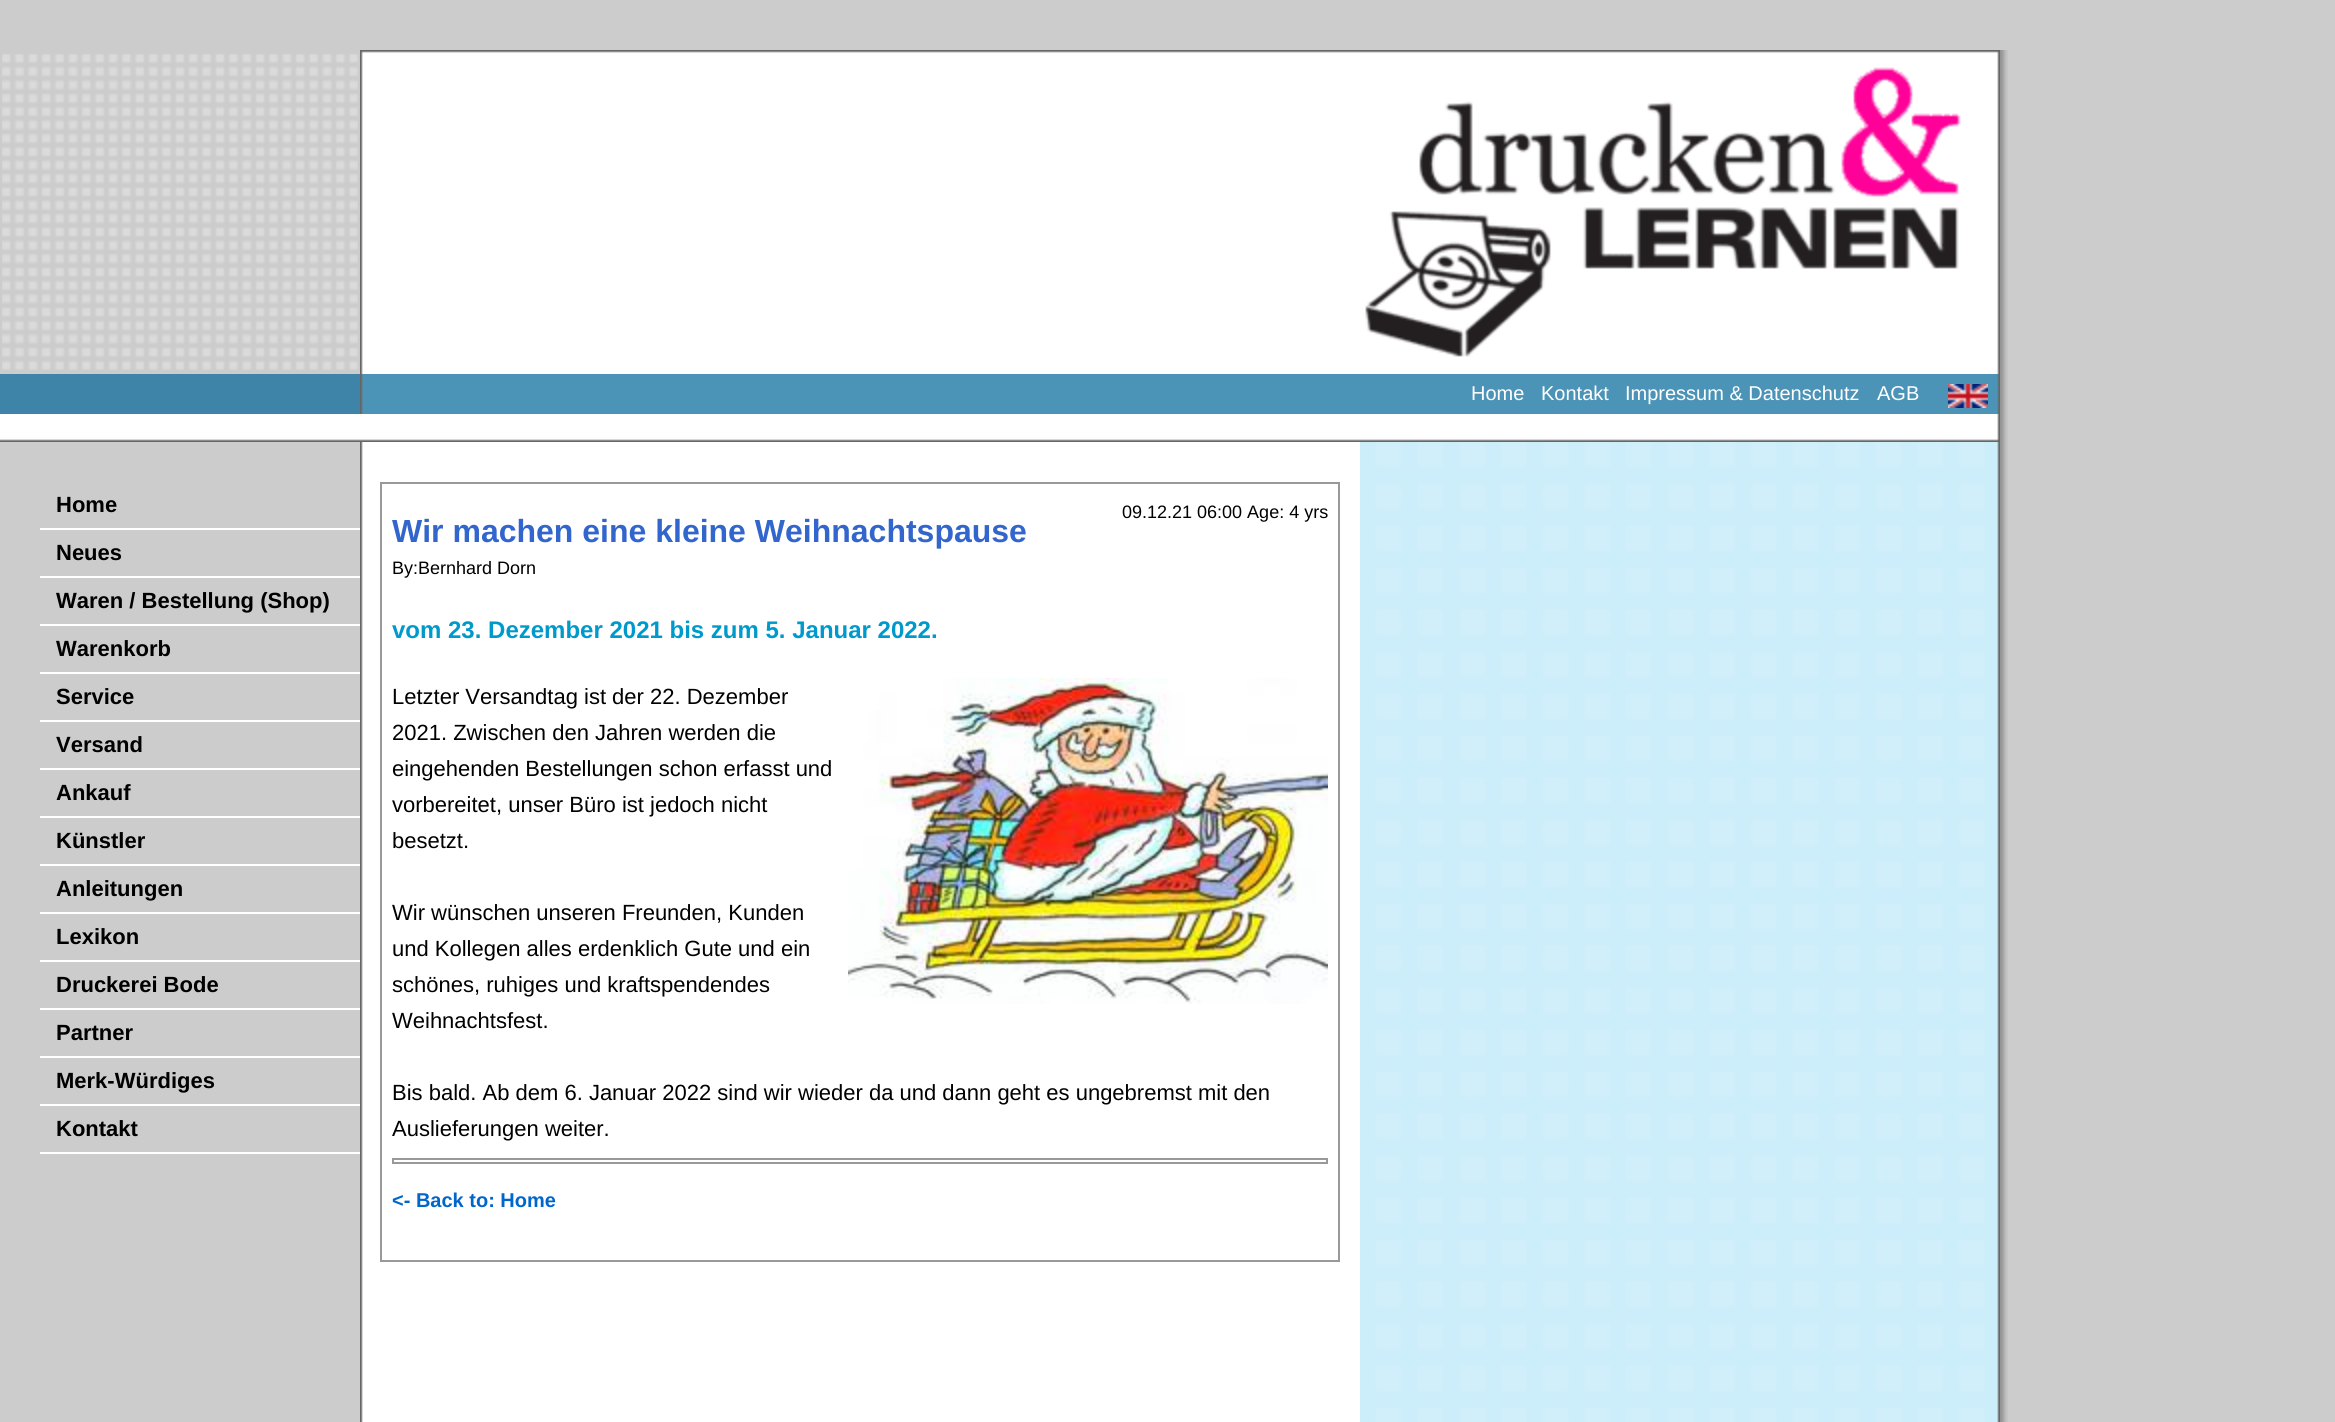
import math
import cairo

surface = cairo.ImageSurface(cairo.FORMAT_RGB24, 2335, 1422)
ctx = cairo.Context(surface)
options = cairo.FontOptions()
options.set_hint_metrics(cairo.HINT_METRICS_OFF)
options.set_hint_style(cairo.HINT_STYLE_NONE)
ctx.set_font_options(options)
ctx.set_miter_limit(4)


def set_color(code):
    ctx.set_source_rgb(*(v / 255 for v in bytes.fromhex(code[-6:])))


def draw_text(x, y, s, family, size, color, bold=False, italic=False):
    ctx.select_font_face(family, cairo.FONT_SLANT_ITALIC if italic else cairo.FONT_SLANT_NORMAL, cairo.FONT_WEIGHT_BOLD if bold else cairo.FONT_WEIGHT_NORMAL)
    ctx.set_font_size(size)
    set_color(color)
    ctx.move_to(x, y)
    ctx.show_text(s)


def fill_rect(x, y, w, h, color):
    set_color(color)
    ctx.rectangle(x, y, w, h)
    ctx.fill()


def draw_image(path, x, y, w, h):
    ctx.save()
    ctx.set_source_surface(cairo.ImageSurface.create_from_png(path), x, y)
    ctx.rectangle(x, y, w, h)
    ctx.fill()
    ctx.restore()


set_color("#cccccc")
ctx.paint()
draw_image("assets/img1.png", 2, 54, 356, 316)
draw_image("assets/img2.png", 360, 50, 1000, 324)
draw_image("assets/img3.png", 1360, 50, 640, 324)
draw_image("assets/img4.png", 2000, 50, 8, 324)
fill_rect(0, 374, 360, 40, "#3d84a8")
draw_image("assets/img5.png", 1001, 374, 359, 40)
draw_image("assets/img6.png", 360, 374, 641, 40)
draw_image("assets/img7.png", 1360, 374, 640, 40)
draw_text(1471, 400, "Home", "Liberation Sans", 20, "#ffffff")
draw_text(1541, 400, "Kontakt", "Liberation Sans", 20, "#ffffff")
draw_text(1625, 400, "Impressum & Datenschutz", "Liberation Sans", 20, "#ffffff")
draw_text(1877, 400, "AGB", "Liberation Sans", 20, "#ffffff")
draw_image("assets/img8.png", 1948, 384, 40, 24)
draw_image("assets/img9.png", 2000, 374, 8, 40)
draw_image("assets/img10.png", 0, 414, 360, 28)
draw_image("assets/img11.png", 360, 414, 1000, 28)
draw_image("assets/img12.png", 1360, 414, 640, 28)
draw_image("assets/img13.png", 2000, 414, 8, 28)
fill_rect(40, 528, 320, 2, "#ffffff")
draw_text(56, 512, "Home", "Liberation Sans", 22, "#000000", bold=True)
fill_rect(40, 576, 320, 2, "#ffffff")
draw_text(56, 560, "Neues", "Liberation Sans", 22, "#000000", bold=True)
fill_rect(40, 624, 320, 2, "#ffffff")
draw_text(56, 608, "Waren / Bestellung (Shop)", "Liberation Sans", 22, "#000000", bold=True)
fill_rect(40, 672, 320, 2, "#ffffff")
draw_text(56, 656, "Warenkorb", "Liberation Sans", 22, "#000000", bold=True)
fill_rect(40, 720, 320, 2, "#ffffff")
draw_text(56, 704, "Service", "Liberation Sans", 22, "#000000", bold=True)
fill_rect(40, 768, 320, 2, "#ffffff")
draw_text(56, 752, "Versand", "Liberation Sans", 22, "#000000", bold=True)
fill_rect(40, 816, 320, 2, "#ffffff")
draw_text(56, 800, "Ankauf", "Liberation Sans", 22, "#000000", bold=True)
fill_rect(40, 864, 320, 2, "#ffffff")
draw_text(56, 848, "Künstler", "Liberation Sans", 22, "#000000", bold=True)
fill_rect(40, 912, 320, 2, "#ffffff")
draw_text(56, 896, "Anleitungen", "Liberation Sans", 22, "#000000", bold=True)
fill_rect(40, 960, 320, 2, "#ffffff")
draw_text(56, 944, "Lexikon", "Liberation Sans", 22, "#000000", bold=True)
fill_rect(40, 1008, 320, 2, "#ffffff")
draw_text(56, 992, "Druckerei Bode", "Liberation Sans", 22, "#000000", bold=True)
fill_rect(40, 1056, 320, 2, "#ffffff")
draw_text(56, 1040, "Partner", "Liberation Sans", 22, "#000000", bold=True)
fill_rect(40, 1104, 320, 2, "#ffffff")
draw_text(56, 1088, "Merk-Würdiges", "Liberation Sans", 22, "#000000", bold=True)
fill_rect(40, 1152, 320, 2, "#ffffff")
draw_text(56, 1136, "Kontakt", "Liberation Sans", 22, "#000000", bold=True)
draw_image("assets/img14.png", 360, 442, 1000, 980)
ctx.rectangle(381, 483, 958, 778)
set_color("#999999")
ctx.stroke()
draw_text(1122, 518, "09.12.21 06:00 Age: 4 yrs", "Liberation Sans", 18, "#000000")
draw_text(392, 542, "Wir machen eine kleine Weihnachtspause", "Liberation Sans", 32, "#3366cc", bold=True)
draw_text(392, 574, "By:Bernhard Dorn", "Liberation Sans", 18, "#000000")
draw_text(392, 638, "vom 23. Dezember 2021 bis zum 5. Januar 2022.", "Liberation Sans", 24, "#0099cc", bold=True)
draw_image("assets/img15.png", 848, 678, 480, 326)
draw_text(392, 704, "Letzter Versandtag ist der 22. Dezember", "Liberation Sans", 22, "#000000")
draw_text(392, 740, "2021. Zwischen den Jahren werden die", "Liberation Sans", 22, "#000000")
draw_text(392, 776, "eingehenden Bestellungen schon erfasst und", "Liberation Sans", 22, "#000000")
draw_text(392, 812, "vorbereitet, unser Büro ist jedoch nicht", "Liberation Sans", 22, "#000000")
draw_text(392, 848, "besetzt.", "Liberation Sans", 22, "#000000")
draw_text(392, 920, "Wir wünschen unseren Freunden, Kunden", "Liberation Sans", 22, "#000000")
draw_text(392, 956, "und Kollegen alles erdenklich Gute und ein", "Liberation Sans", 22, "#000000")
draw_text(392, 992, "schönes, ruhiges und kraftspendendes", "Liberation Sans", 22, "#000000")
draw_text(392, 1028, "Weihnachtsfest.", "Liberation Sans", 22, "#000000")
draw_text(392, 1100, "Bis bald. Ab dem 6. Januar 2022 sind wir wieder da und dann geht es ungebremst mit den", "Liberation Sans", 22, "#000000")
draw_text(392, 1136, "Auslieferungen weiter.", "Liberation Sans", 22, "#000000")
ctx.rectangle(393, 1159, 934, 4)
set_color("#999999")
ctx.stroke()
draw_text(392, 1207, "<- Back to: Home", "Liberation Sans", 20, "#0066cc", bold=True)
draw_image("assets/img16.png", 1360, 442, 640, 980)
draw_image("assets/img17.png", 2000, 442, 8, 980)
surface.write_to_png("output.png")
